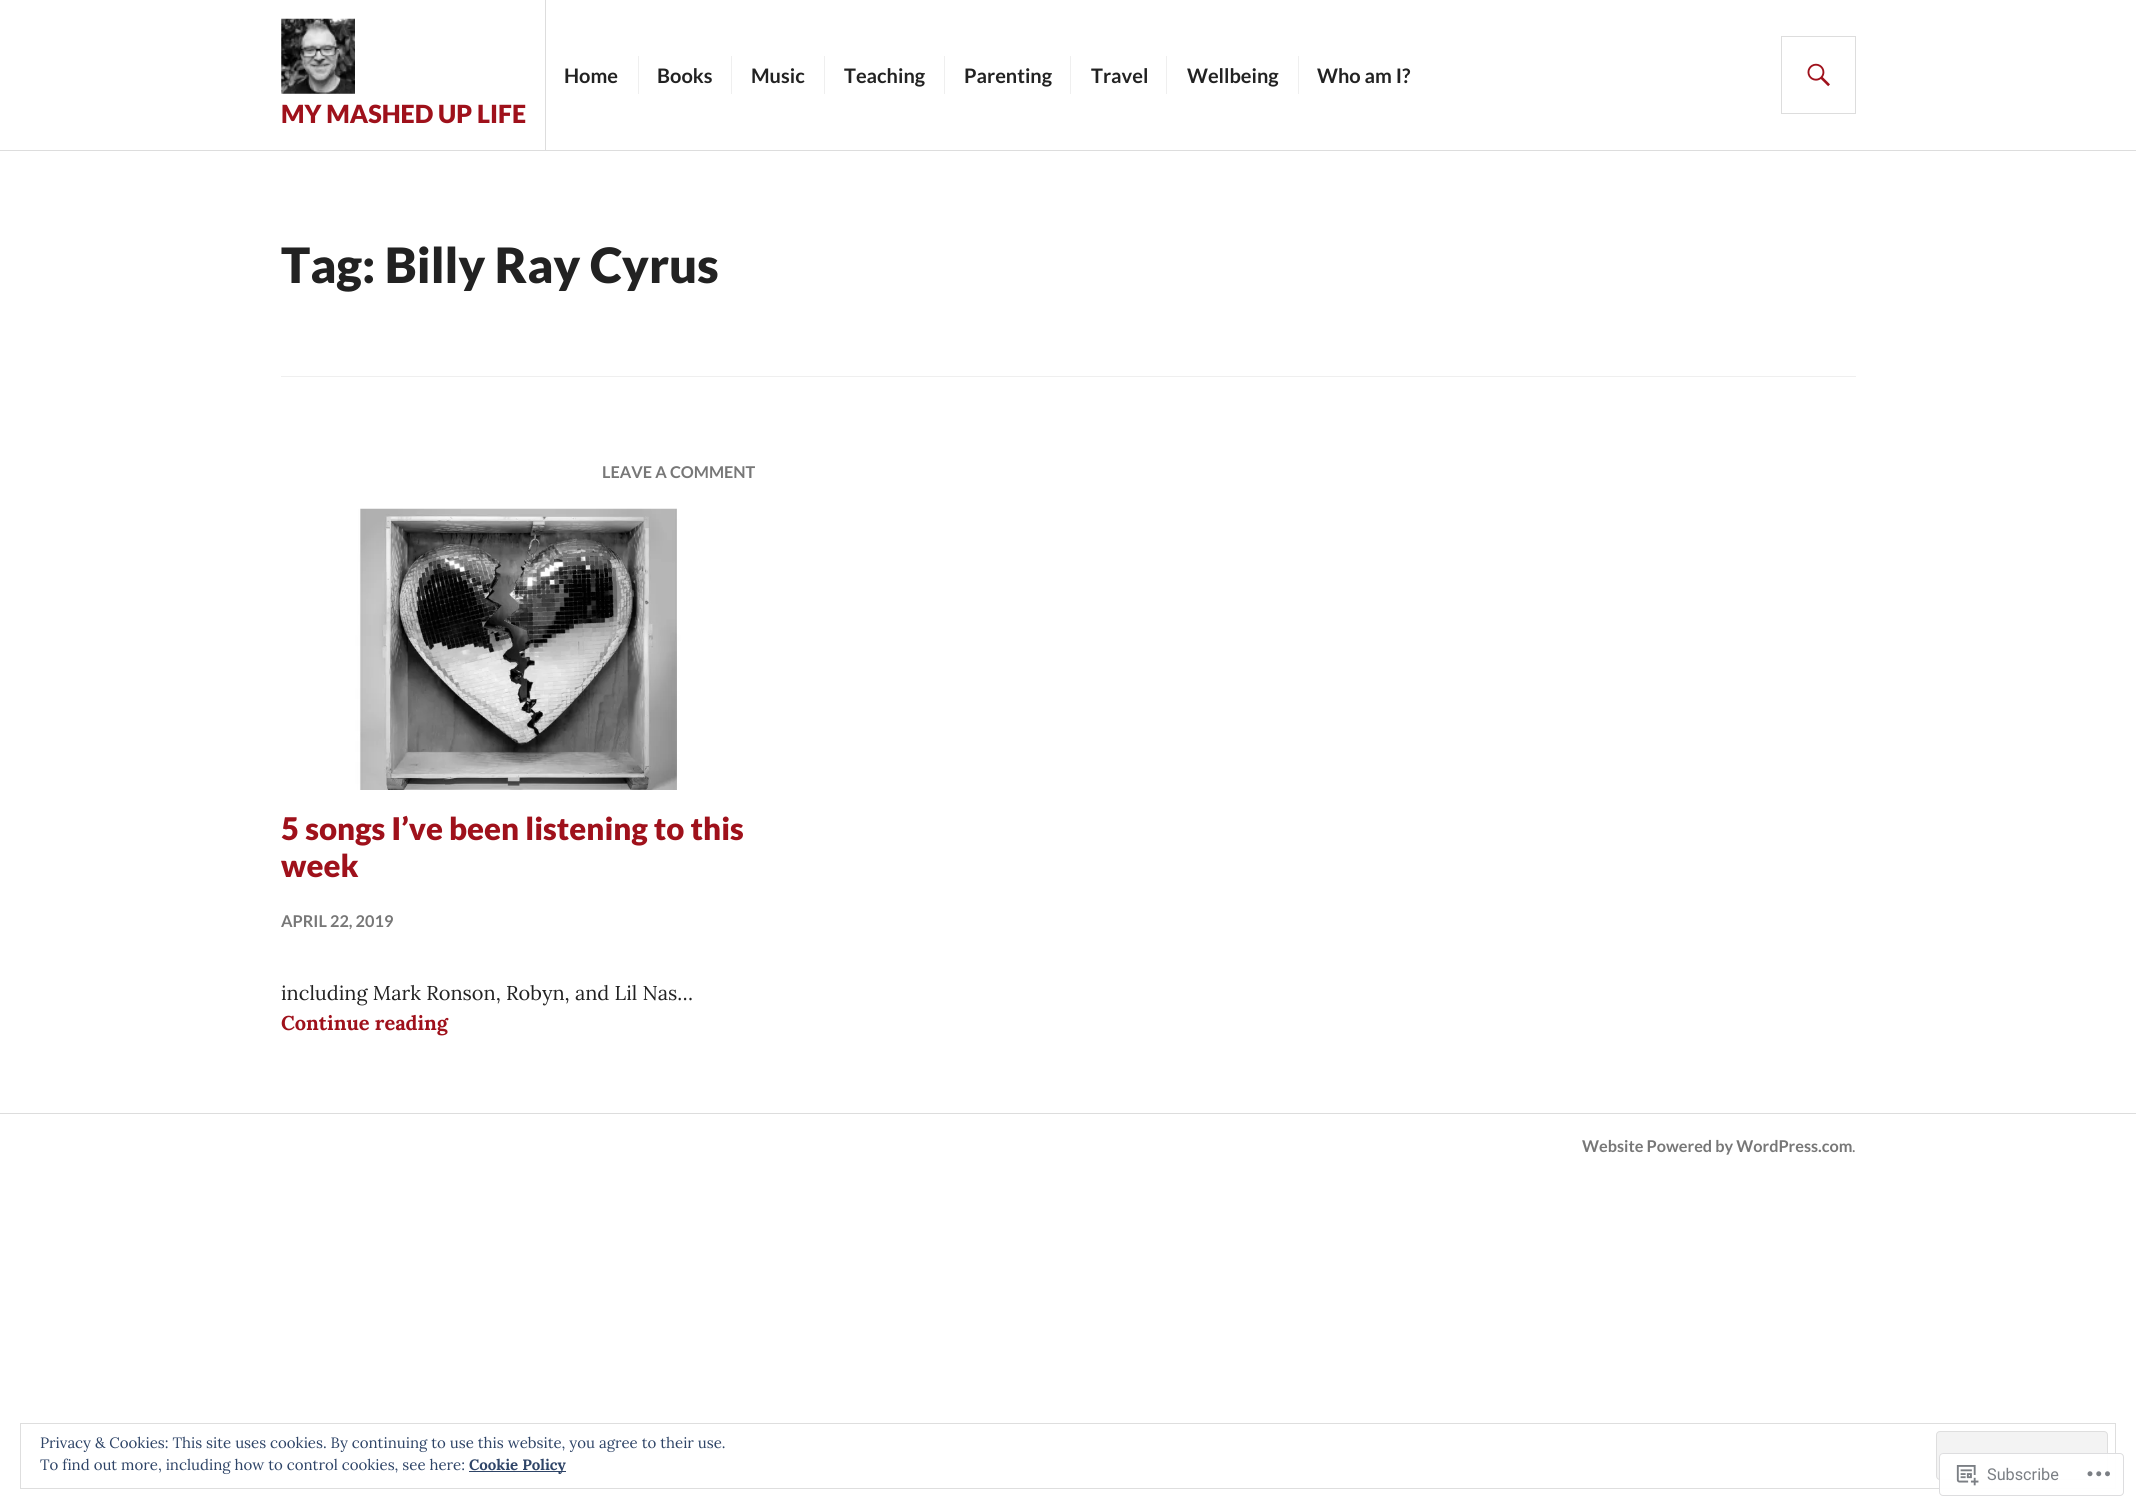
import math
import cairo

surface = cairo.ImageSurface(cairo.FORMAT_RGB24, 2136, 1508)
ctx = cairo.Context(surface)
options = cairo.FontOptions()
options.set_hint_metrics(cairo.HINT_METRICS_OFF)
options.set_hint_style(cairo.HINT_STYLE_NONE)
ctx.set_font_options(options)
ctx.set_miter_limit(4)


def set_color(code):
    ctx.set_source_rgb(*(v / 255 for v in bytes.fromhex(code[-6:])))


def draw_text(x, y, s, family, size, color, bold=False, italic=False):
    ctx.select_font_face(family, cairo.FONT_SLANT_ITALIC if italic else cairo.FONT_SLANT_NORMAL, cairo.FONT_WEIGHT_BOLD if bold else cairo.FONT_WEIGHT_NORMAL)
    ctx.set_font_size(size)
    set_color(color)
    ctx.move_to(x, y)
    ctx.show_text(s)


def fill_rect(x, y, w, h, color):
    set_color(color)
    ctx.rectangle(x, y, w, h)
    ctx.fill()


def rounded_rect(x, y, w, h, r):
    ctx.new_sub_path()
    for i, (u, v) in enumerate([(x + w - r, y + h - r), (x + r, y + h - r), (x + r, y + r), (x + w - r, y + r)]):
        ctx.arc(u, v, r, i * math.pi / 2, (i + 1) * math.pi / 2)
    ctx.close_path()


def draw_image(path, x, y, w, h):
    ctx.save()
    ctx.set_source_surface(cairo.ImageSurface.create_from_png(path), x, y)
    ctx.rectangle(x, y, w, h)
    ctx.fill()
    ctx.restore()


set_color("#ffffff")
ctx.paint()
fill_rect(0, 150, 2136, 1, "#dddddd")
draw_text(564, 83, "Home", "Lato", 20, "#222222", bold=True)
fill_rect(638, 56, 1, 38, "#efefef")
draw_text(657, 83, "Books", "Lato", 20, "#222222", bold=True)
fill_rect(731, 56, 1, 38, "#efefef")
draw_text(751, 83, "Music", "Lato", 20, "#222222", bold=True)
fill_rect(824, 56, 1, 38, "#efefef")
draw_text(844, 83, "Teaching", "Lato", 20, "#222222", bold=True)
fill_rect(944, 56, 1, 38, "#efefef")
draw_text(964, 83, "Parenting", "Lato", 20, "#222222", bold=True)
fill_rect(1070, 56, 1, 38, "#efefef")
draw_text(1091, 83, "Travel", "Lato", 20, "#222222", bold=True)
fill_rect(1166, 56, 1, 38, "#efefef")
draw_text(1187, 83, "Wellbeing", "Lato", 20, "#222222", bold=True)
fill_rect(1298, 56, 1, 38, "#efefef")
draw_text(1317, 83, "Who am I?", "Lato", 20, "#222222", bold=True)
ctx.rectangle(1781.5, 36.5, 74, 77)
set_color("#dddddd")
ctx.set_line_width(1)
ctx.stroke()
draw_image("assets/img1.png", 1807, 63, 23, 24)
draw_image("assets/img2.png", 281, 18, 74, 76)
fill_rect(545, 0, 1, 150, "#dddddd")
draw_text(281, 123, "MY MASHED UP LIFE", "Lato Black", 25, "#9f111b")
fill_rect(281, 376, 1575, 1, "#efefef")
draw_text(281, 283, "Tag: Billy Ray Cyrus", "Lato Black", 48.75, "#222222")
draw_text(602, 478, "LEAVE A COMMENT", "Lato", 16.25, "#777777", bold=True)
draw_image("assets/img3.png", 281, 508, 475, 282)
draw_text(281, 840, "5 songs I’ve been listening to this", "Lato Black", 31.25, "#9f111b")
draw_text(281, 877, "week", "Lato Black", 31.25, "#9f111b")
draw_text(281, 927, "APRIL 22, 2019", "Lato", 16.25, "#777777", bold=True)
draw_text(281, 1000, "including Mark Ronson, Robyn, and Lil Nas…", "Lora", 20, "#222222")
draw_text(281, 1030, "Continue reading", "Lora", 20, "#9f111b", bold=True)
fill_rect(0, 1113, 2136, 1, "#dddddd")
draw_text(1582, 1152, "Website Powered by WordPress.com", "Lato", 16.25, "#777777", bold=True)
draw_text(1852, 1152, ".", "Lato", 16.25, "#777777")
ctx.rectangle(20.5, 1423.5, 2095, 65)
set_color("#dedede")
ctx.stroke()
draw_text(40, 1448, "Privacy & Cookies: This site uses cookies. By continuing to use this website, you agree to their use.", "Lora", 15, "#2e4467")
set_color("#f3f3f3")
rounded_rect(1936.5, 1431.5, 171, 48, 3.5)
ctx.fill_preserve()
set_color("#dedede")
ctx.stroke()
draw_text(40, 1470, "To find out more, including how to control cookies, see here:", "Lora", 15, "#2e4467")
fill_rect(469, 1471, 97, 1, "#2e4467")
draw_text(469, 1470, "Cookie Policy", "Lora", 15, "#2e4467", bold=True)
ctx.set_source_rgba(1, 1, 1, 0.98)
rounded_rect(1939, 1453, 185, 43, 4)
ctx.fill()
rounded_rect(1939.5, 1453.5, 184, 42, 3.5)
ctx.set_source_rgba(0.863, 0.863, 0.871, 0.98)
ctx.stroke()
draw_image("assets/img4.png", 1956, 1465, 23, 21)
draw_text(1987, 1480, "Subscribe", "Roboto", 16.25, "#7b7f84")
draw_image("assets/img5.png", 2087, 1471, 23, 6)
surface.write_to_png("output.png")
